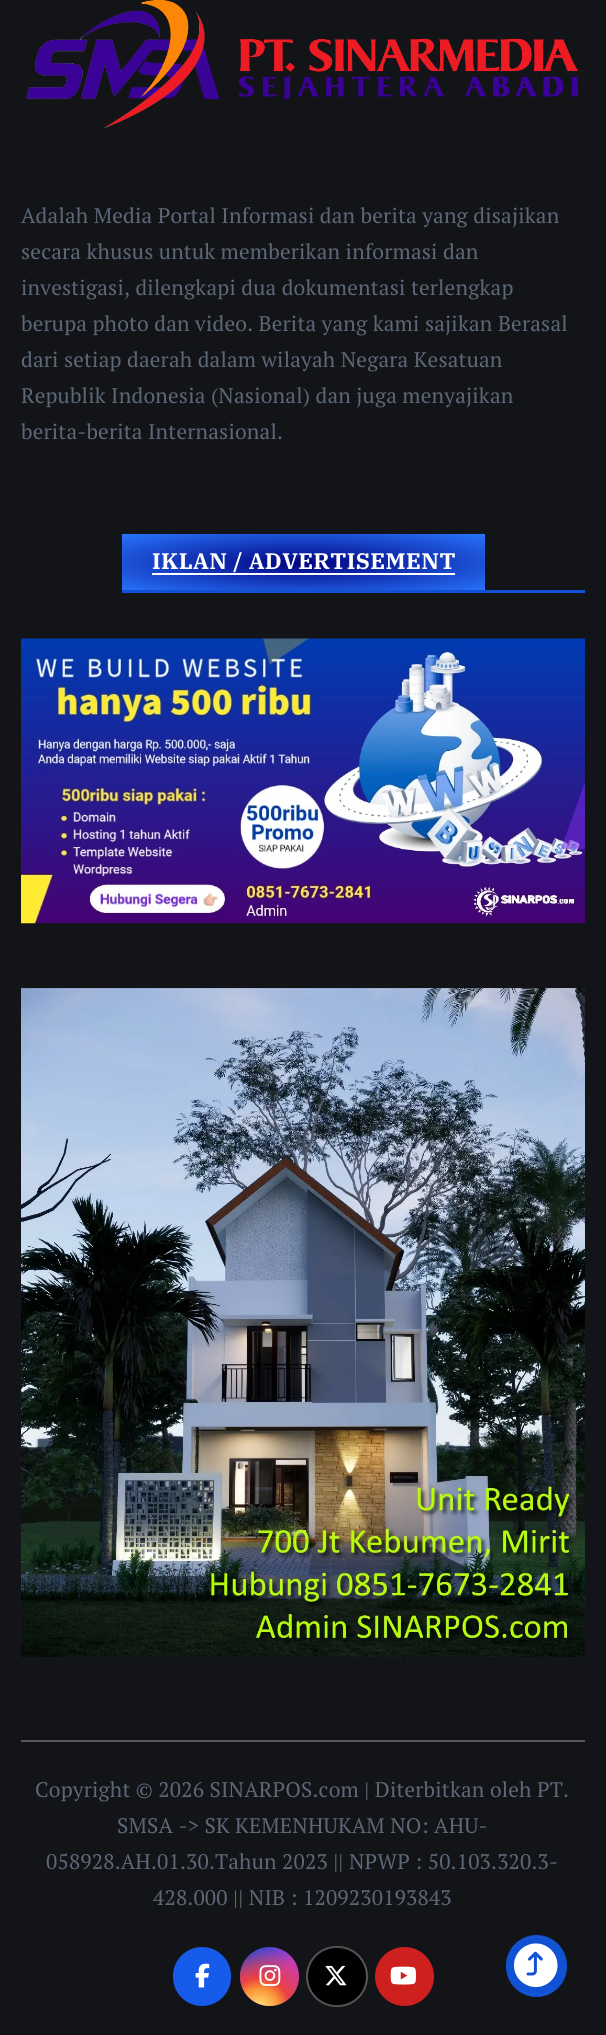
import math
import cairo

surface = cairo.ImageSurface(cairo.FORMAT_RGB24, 606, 2035)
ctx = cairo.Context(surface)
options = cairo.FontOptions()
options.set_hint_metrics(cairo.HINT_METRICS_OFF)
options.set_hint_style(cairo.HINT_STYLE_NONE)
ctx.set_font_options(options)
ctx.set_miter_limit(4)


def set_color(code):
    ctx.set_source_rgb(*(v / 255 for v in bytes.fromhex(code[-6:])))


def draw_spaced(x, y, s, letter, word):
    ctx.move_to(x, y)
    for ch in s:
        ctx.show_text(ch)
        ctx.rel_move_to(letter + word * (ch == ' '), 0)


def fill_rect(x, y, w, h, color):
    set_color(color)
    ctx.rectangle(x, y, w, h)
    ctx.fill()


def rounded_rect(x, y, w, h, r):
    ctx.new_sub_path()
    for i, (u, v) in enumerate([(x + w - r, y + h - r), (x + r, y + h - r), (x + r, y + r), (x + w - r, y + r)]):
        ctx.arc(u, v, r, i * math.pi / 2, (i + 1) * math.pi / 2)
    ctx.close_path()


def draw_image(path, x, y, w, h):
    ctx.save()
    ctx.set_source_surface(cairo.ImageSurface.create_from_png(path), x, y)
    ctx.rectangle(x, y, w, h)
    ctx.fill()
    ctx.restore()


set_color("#121418")
ctx.paint()
draw_image("assets/img1.png", 26, 0, 553, 129)
ctx.select_font_face("PT Serif")
ctx.set_font_size(21.1)
set_color("#5c6777")
draw_spaced(21, 223, "Adalah Media Portal Informasi dan berita yang disajikan", 0.2, 0)
draw_spaced(21, 259, "secara khusus untuk memberikan informasi dan", 0.2, 0)
draw_spaced(21, 295, "investigasi, dilengkapi dua dokumentasi terlengkap", 0.2, 0)
draw_spaced(21, 331, "berupa photo dan video. Berita yang kami sajikan Berasal", 0.2, 0)
draw_spaced(21, 367, "dari setiap daerah dalam wilayah Negara Kesatuan", 0.2, 0)
draw_spaced(21, 403, "Republik Indonesia (Nasional) dan juga menyajikan", 0.2, 0)
draw_spaced(21, 439, "berita-berita Internasional.", 0.2, 0)
gradient = cairo.RadialGradient(0, 0, 0, 0, 0, 1)
gradient.set_matrix(cairo.Matrix(1 / 257, 0, 0, 1 / 40, -1 * 303 / 257, -1 * 563 / 40))
gradient.add_color_stop_rgba(0, 0.008, 0.012, 0.506, 1)
gradient.add_color_stop_rgba(1, 0.157, 0.455, 0.988, 1)
ctx.set_source(gradient)
ctx.rectangle(122, 534, 363, 56)
ctx.fill()
ctx.select_font_face("IBM Plex Serif", cairo.FONT_SLANT_NORMAL, cairo.FONT_WEIGHT_BOLD)
ctx.set_font_size(22.5)
set_color("#ffffff")
draw_spaced(152, 569, "IKLAN / ADVERTISEMENT", 0.4, 0)
fill_rect(152, 573, 303, 2, "#ffffff")
fill_rect(122, 590, 463, 3, "#1151d3")
draw_image("assets/img2.png", 21, 638, 564, 286)
draw_image("assets/img3.png", 21, 988, 564, 669)
fill_rect(21, 1740, 564, 2, "#56585a")
ctx.select_font_face("PT Serif")
ctx.set_font_size(21.1)
set_color("#5c6777")
draw_spaced(35, 1797, "Copyright © 2026 SINARPOS.com | Diterbitkan oleh PT.", 0.2, 0)
draw_spaced(117, 1833, "SMSA -> SK KEMENHUKAM NO: AHU-", 0.2, 0)
draw_spaced(46, 1869, "058928.AH.01.30.Tahun 2023 || NPWP : 50.103.320.3-", 0.2, 0)
draw_spaced(153, 1905, "428.000 || NIB : 1209230193843", 0.2, 0)
set_color("#175beb")
rounded_rect(173, 1947, 58, 59, 29)
ctx.fill()
draw_image("assets/img4.png", 195, 1963, 15, 25)
gradient = cairo.LinearGradient(240, 1947, 299, 2006)
gradient.add_color_stop_rgba(0.12, 0.137, 0.294, 0.843, 1)
gradient.add_color_stop_rgba(0.58, 0.765, 0.235, 0.745, 1)
ctx.set_source(gradient)
ctx.arc(269.5, 1976.5, 29.5, 0, 2 * math.pi)
ctx.fill()
gradient = cairo.RadialGradient(259, 2009, 0, 259, 2009, 74)
gradient.add_color_stop_rgba(0, 1, 0.882, 0.49, 1)
gradient.add_color_stop_rgba(0.1, 1, 0.804, 0.412, 1)
gradient.add_color_stop_rgba(0.28, 0.98, 0.569, 0.216, 1)
gradient.add_color_stop_rgba(0.42, 0.922, 0.255, 0.255, 1)
gradient.add_color_stop_rgba(0.82, 0.922, 0.255, 0.255, 0)
ctx.set_source(gradient)
ctx.arc(269.5, 1976.5, 29.5, 0, 2 * math.pi)
ctx.fill()
draw_image("assets/img5.png", 259, 1965, 22, 21)
set_color("#000000")
rounded_rect(308, 1947, 58, 59, 29)
ctx.fill()
draw_image("assets/img6.png", 325, 1965, 22, 21)
rounded_rect(307, 1947, 60, 59, 29.5)
ctx.set_source_rgba(0.741, 0.741, 0.741, 0.4)
ctx.stroke()
set_color("#cd201f")
ctx.arc(404.5, 1976.5, 29.5, 0, 2 * math.pi)
ctx.fill()
draw_image("assets/img7.png", 390, 1966, 27, 19)
set_color("#ffffff")
rounded_rect(507, 1937, 59, 58, 29)
ctx.fill()
ctx.save()
rounded_rect(507, 1937, 59, 58, 29)
ctx.clip()
ctx.new_path()
ctx.move_to(536, 1937.5)
ctx.curve_to(551, 1937.5, 563.5, 1950, 563.5, 1965.5)
ctx.curve_to(563.5, 1980.5, 551, 1993, 536, 1993)
ctx.curve_to(520.5, 1993, 508, 1980.5, 508, 1965.5)
ctx.curve_to(508, 1950, 520.5, 1937.5, 536, 1937.5)
set_color("#1151d3")
ctx.set_line_width(11.9)
ctx.stroke()
ctx.restore()
rounded_rect(507, 1936, 59, 60, 29.5)
set_color("#1151d3")
ctx.stroke()
draw_image("assets/img8.png", 526, 1951, 17, 25)
surface.write_to_png("output.png")
